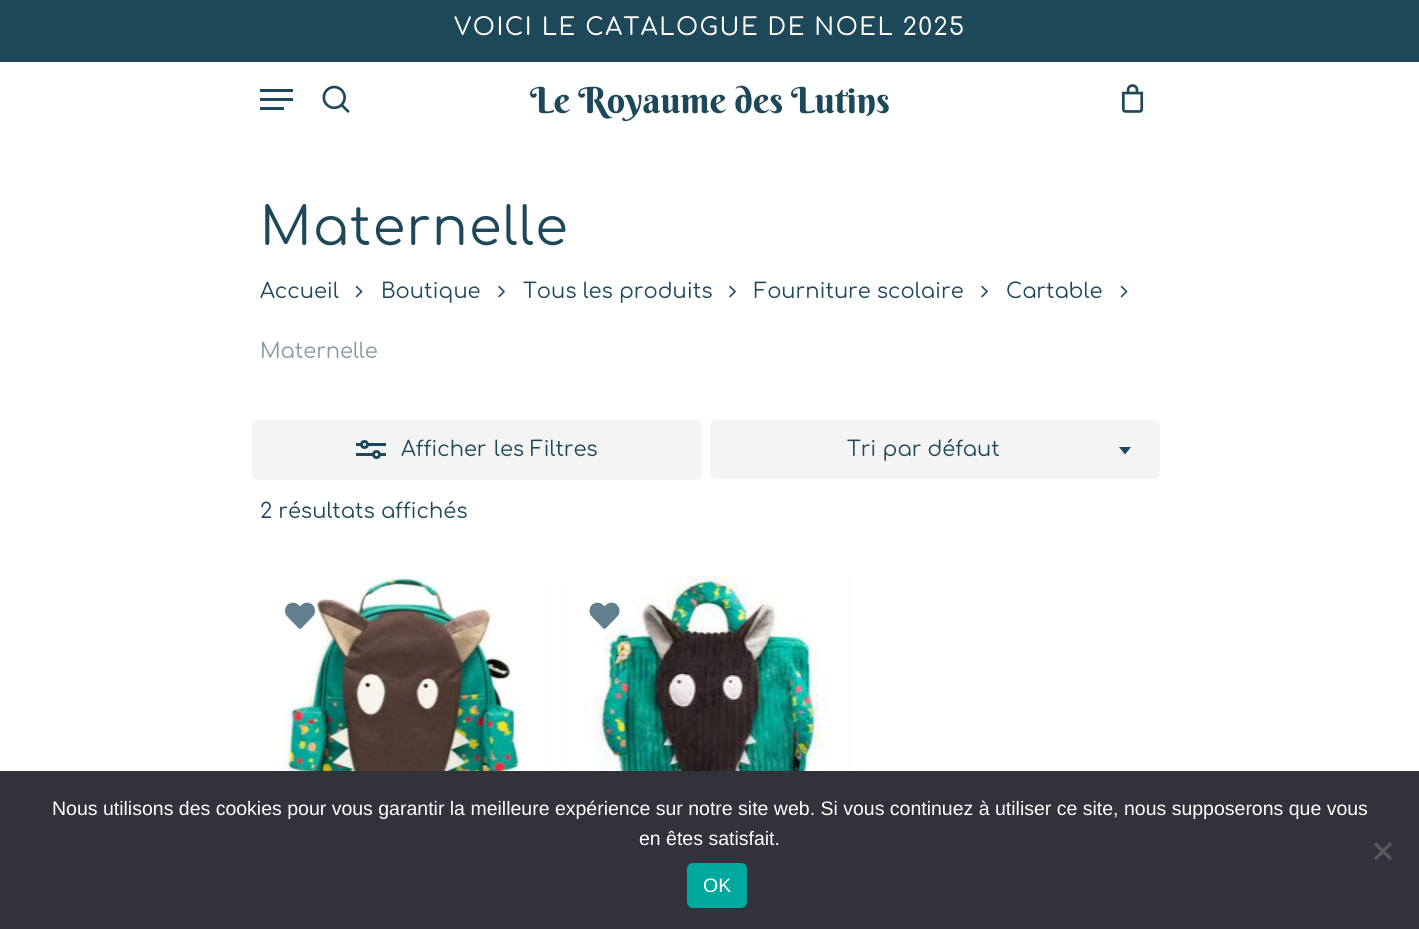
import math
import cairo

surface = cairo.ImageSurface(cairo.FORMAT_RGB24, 1419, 929)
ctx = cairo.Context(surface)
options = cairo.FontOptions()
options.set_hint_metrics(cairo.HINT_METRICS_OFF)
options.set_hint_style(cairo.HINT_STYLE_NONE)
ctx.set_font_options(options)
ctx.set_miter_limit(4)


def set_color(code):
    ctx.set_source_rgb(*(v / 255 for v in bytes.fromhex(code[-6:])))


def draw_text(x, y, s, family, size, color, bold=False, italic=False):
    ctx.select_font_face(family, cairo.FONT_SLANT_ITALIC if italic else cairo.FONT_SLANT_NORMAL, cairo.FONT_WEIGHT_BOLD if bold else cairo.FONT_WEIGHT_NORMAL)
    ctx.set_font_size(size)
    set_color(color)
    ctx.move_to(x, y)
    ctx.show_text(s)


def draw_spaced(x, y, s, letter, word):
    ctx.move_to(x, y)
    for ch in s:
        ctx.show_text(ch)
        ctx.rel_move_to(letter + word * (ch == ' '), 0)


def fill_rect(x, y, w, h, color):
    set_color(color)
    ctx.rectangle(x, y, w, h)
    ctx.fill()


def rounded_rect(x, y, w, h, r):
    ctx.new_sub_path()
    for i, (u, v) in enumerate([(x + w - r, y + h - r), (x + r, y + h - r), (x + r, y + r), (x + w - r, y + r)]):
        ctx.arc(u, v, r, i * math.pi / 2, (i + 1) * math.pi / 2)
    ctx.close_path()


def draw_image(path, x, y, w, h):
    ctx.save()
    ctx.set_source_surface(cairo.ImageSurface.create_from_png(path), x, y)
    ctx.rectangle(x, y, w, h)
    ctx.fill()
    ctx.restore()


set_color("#ffffff")
ctx.paint()
fill_rect(0, 0, 1419, 62, "#1d485a")
ctx.select_font_face("Comfortaa Medium")
ctx.set_font_size(24)
set_color("#ffffff")
draw_spaced(454, 35, "VOICI LE CATALOGUE DE NOEL 2025", 1.5, 0)
fill_rect(260, 89, 33, 3, "#1d485a")
fill_rect(260, 107, 24, 3, "#1d485a")
fill_rect(260, 98, 33, 3, "#1d485a")
draw_image("assets/img1.png", 322, 85, 28, 28)
draw_image("assets/img2.png", 1122, 84, 22, 29)
draw_text(530, 113, "Le Royaume des Lutins", "Berkshire Swash", 36, "#1d485a")
ctx.select_font_face("Comfortaa")
ctx.set_font_size(52.5)
draw_spaced(260, 245, "Maternelle", 1.5, 0)
draw_text(260, 298, "Accueil", "Comfortaa", 21, "#1d485a")
draw_image("assets/img3.png", 355, 285, 8, 13)
draw_text(381, 298, "Boutique", "Comfortaa", 21, "#1d485a")
draw_image("assets/img4.png", 498, 285, 7, 13)
draw_text(523, 298, "Tous les produits", "Comfortaa", 21, "#1d485a")
draw_image("assets/img4.png", 729, 285, 7, 13)
draw_text(754, 298, "Fourniture scolaire", "Comfortaa", 21, "#1d485a")
draw_image("assets/img4.png", 981, 285, 7, 13)
draw_text(1006, 298, "Cartable", "Comfortaa", 21, "#1d485a")
draw_image("assets/img3.png", 1120, 285, 8, 13)
draw_text(260, 358, "Maternelle", "Comfortaa", 21, "#839aa4")
set_color("#f4f4f4")
rounded_rect(710, 420, 450, 59, 6)
ctx.fill()
draw_text(847, 456, "Tri par défaut", "Comfortaa", 21, "#1d485a")
ctx.new_path()
ctx.move_to(1119, 447)
ctx.line_to(1131, 447)
ctx.line_to(1125, 454.5)
ctx.close_path()
ctx.fill()
draw_text(260, 518, "2 résultats affichés", "Comfortaa", 21, "#1d485a")
set_color("#f4f4f4")
rounded_rect(252, 420, 450, 60, 6)
ctx.fill()
fill_rect(356, 443, 30, 3, "#1d485a")
fill_rect(356, 453, 30, 3, "#1d485a")
set_color("#ffffff")
ctx.arc(364.5, 444.5, 3, 0, 2 * math.pi)
ctx.fill_preserve()
set_color("#1d485a")
ctx.set_line_width(3)
ctx.stroke()
set_color("#ffffff")
ctx.arc(376.5, 454.5, 3, 0, 2 * math.pi)
ctx.fill_preserve()
set_color("#1d485a")
ctx.stroke()
draw_text(401, 456, "Afficher", "Comfortaa", 21, "#1d485a")
draw_text(494, 456, "les Filtres", "Comfortaa", 21, "#1d485a")
set_color("#f8f8f8")
ctx.new_path()
ctx.move_to(269, 576)
ctx.line_to(537, 576)
ctx.curve_to(542, 576, 546, 580, 546, 585)
ctx.line_to(546, 863)
ctx.line_to(260, 863)
ctx.line_to(260, 585)
ctx.curve_to(260, 580, 264, 576, 269, 576)
ctx.close_path()
ctx.fill()
draw_image("assets/img5.png", 260, 576, 286, 195)
draw_image("assets/img6.png", 285, 602, 30, 27)
ctx.new_path()
ctx.move_to(573, 576)
ctx.line_to(842, 576)
ctx.curve_to(847, 576, 851, 580, 851, 585)
ctx.line_to(851, 863)
ctx.line_to(564, 863)
ctx.line_to(564, 585)
ctx.curve_to(564, 580, 568, 576, 573, 576)
ctx.close_path()
ctx.fill()
draw_image("assets/img7.png", 564, 576, 286, 195)
draw_image("assets/img8.png", 589, 602, 31, 27)
fill_rect(0, 771, 1419, 158, "#32323a")
draw_text(52, 815, "Nous utilisons des cookies pour vous garantir la meilleure expérience sur notre site web. Si vous continuez à utiliser ce site, nous supposerons que vous", "Liberation Sans", 19.5, "#ffffff")
draw_text(639, 845, "en êtes satisfait.", "Liberation Sans", 19.5, "#ffffff")
set_color("#59595d")
ctx.new_path()
ctx.move_to(1390, 842)
ctx.line_to(1392, 844.5)
ctx.line_to(1376, 860.5)
ctx.line_to(1374, 858)
ctx.close_path()
ctx.fill()
ctx.new_path()
ctx.move_to(1374, 844.5)
ctx.line_to(1376, 842)
ctx.line_to(1392, 858)
ctx.line_to(1390, 860.5)
ctx.close_path()
ctx.fill()
set_color("#00a99d")
rounded_rect(687, 863, 60, 45, 6)
ctx.fill()
draw_text(703, 892, "OK", "Liberation Sans", 19.5, "#ffffff")
surface.write_to_png("output.png")
